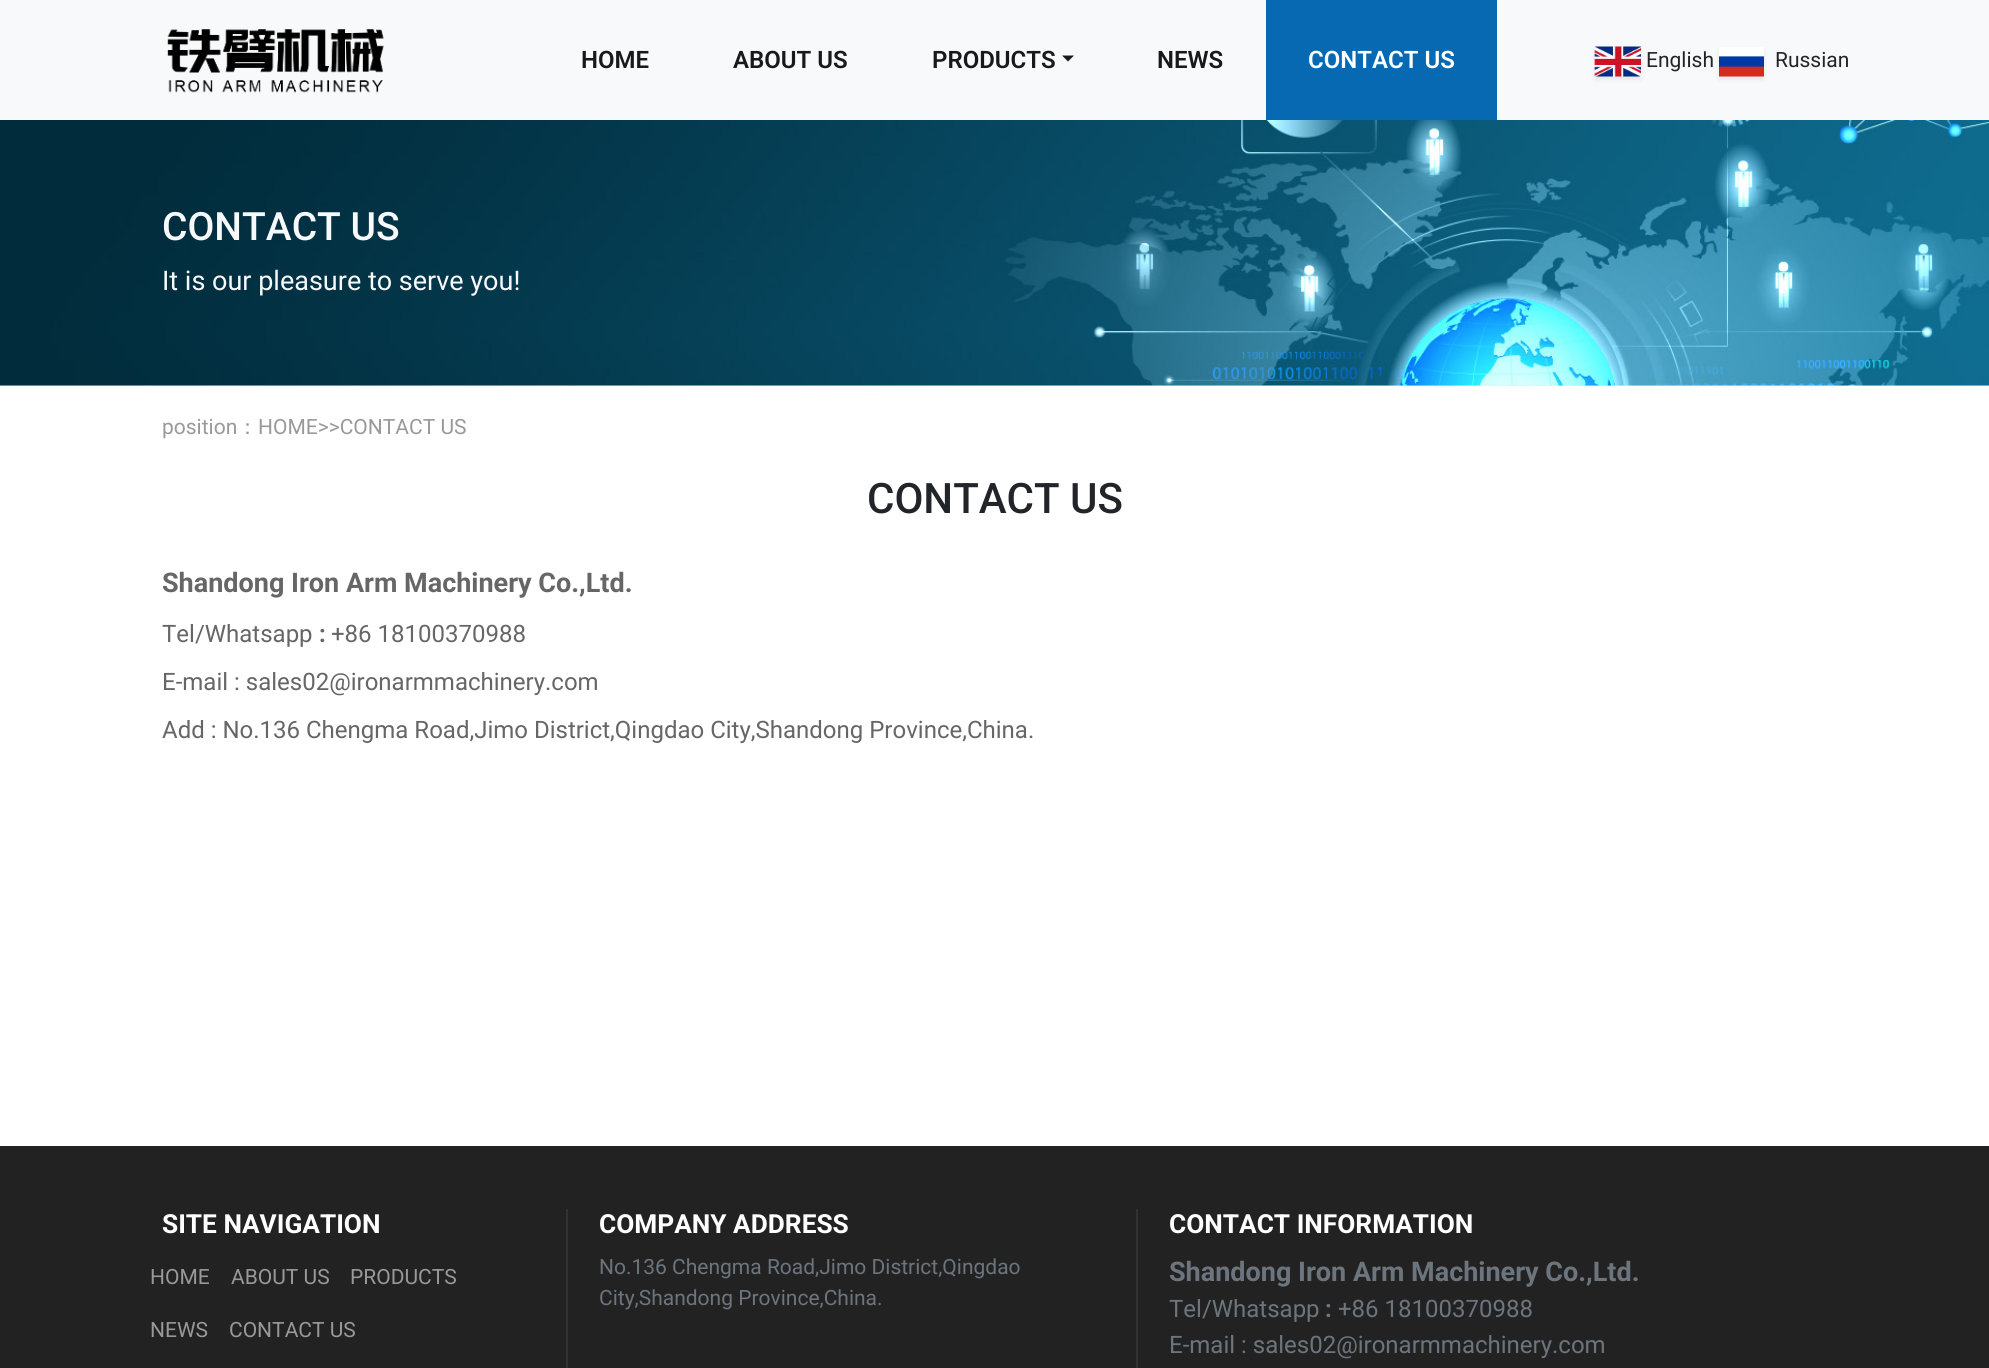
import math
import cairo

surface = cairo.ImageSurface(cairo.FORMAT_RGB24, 1989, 1368)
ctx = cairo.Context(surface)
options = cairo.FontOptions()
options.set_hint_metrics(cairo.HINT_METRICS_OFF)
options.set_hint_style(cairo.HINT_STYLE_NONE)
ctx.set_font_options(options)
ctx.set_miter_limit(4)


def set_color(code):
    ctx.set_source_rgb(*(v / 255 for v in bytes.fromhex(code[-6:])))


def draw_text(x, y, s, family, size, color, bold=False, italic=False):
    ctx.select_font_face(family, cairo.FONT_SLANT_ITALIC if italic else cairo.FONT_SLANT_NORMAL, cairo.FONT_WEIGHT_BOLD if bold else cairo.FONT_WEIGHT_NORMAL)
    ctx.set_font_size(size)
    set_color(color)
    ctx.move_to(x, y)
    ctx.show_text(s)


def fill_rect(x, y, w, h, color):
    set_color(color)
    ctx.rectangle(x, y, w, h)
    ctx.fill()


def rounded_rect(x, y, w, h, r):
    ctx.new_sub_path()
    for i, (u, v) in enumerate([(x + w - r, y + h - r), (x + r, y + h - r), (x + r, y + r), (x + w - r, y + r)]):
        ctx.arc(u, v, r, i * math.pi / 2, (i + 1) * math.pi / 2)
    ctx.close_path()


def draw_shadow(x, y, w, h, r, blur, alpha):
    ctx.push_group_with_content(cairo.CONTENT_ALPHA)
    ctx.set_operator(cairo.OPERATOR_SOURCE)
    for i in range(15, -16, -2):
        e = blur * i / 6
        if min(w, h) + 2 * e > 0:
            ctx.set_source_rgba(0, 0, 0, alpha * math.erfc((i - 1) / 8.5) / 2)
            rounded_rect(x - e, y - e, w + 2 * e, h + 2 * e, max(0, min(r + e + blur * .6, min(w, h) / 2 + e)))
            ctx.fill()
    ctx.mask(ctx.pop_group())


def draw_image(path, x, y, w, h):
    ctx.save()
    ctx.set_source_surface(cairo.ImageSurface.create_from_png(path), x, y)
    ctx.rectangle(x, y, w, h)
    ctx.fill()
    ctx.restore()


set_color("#ffffff")
ctx.paint()
fill_rect(0, 0, 1989, 120, "#f8f9fa")
draw_image("assets/img1.png", 167, 29, 217, 64)
draw_text(581, 68, "HOME", "Roboto SemiBold", 24, "#191919")
draw_text(733, 68, "ABOUT US", "Roboto SemiBold", 24, "#191919")
draw_text(932, 68, "PRODUCTS", "Roboto SemiBold", 24, "#191919")
ctx.new_path()
ctx.move_to(1062, 55.5)
ctx.line_to(1074, 55.5)
ctx.line_to(1068, 61.5)
ctx.close_path()
ctx.fill()
draw_text(1157, 68, "NEWS", "Roboto SemiBold", 24, "#191919")
fill_rect(1266, 0, 231, 120, "#0669b2")
draw_text(1308, 68, "CONTACT US", "Roboto SemiBold", 24, "#ffffff")
set_color("#000000")
draw_shadow(1595, 50, 46, 30, 0, 2.5, 0.07)
draw_shadow(1719, 50, 45, 30, 0, 2.5, 0.07)
draw_image("assets/img2.png", 1594, 46, 47, 31)
draw_text(1646, 67, "English", "Roboto", 21, "#212529")
draw_image("assets/img3.png", 1719, 47, 45, 30)
draw_text(1775, 67, "Russian", "Roboto", 21, "#212529")
fill_rect(0, 385, 1989, 1, "#e9ecef")
draw_image("assets/img4.png", 0, 120, 1989, 266)
draw_text(162, 240, "CONTACT US", "Roboto Medium", 39, "#f8f9fa")
draw_text(162, 290, "It is our pleasure to serve you!", "Roboto", 27, "#f8f9fa")
draw_text(162, 434, "position", "Roboto", 21, "#999999")
draw_text(237, 434, "：", "WenQuanYi Zen Hei Medium", 21, "#999999")
draw_text(258, 434, "HOME>>CONTACT US", "Roboto", 21, "#999999")
draw_text(867, 513, "CONTACT US", "Roboto Medium", 42, "#212529")
draw_text(162, 592, "Shandong Iron Arm Machinery Co.,Ltd.", "Roboto", 27, "#666666", bold=True)
draw_text(162, 642, "Tel/Whatsapp", "Roboto", 24, "#666666")
draw_text(319, 642, ":", "Roboto", 24, "#666666", bold=True)
draw_text(331, 642, "+86 18100370988", "Roboto", 24, "#666666")
draw_text(162, 690, "E-mail : sales02@ironarmmachinery.com", "Roboto", 24, "#666666")
draw_text(162, 738, "Add : No.136 Chengma Road,Jimo District,Qingdao City,Shandong Province,China.", "Roboto", 24, "#666666")
fill_rect(0, 1146, 1989, 222, "#222222")
fill_rect(566, 1209, 2, 159, "#323232")
draw_text(162, 1233, "SITE NAVIGATION", "Roboto", 26.25, "#ffffff", bold=True)
draw_text(150, 1284, "HOME", "Roboto", 21, "#999999")
draw_text(231, 1284, "ABOUT US", "Roboto", 21, "#999999")
draw_text(350, 1284, "PRODUCTS", "Roboto", 21, "#999999")
draw_text(150, 1337, "NEWS", "Roboto", 21, "#999999")
draw_text(229, 1337, "CONTACT US", "Roboto", 21, "#999999")
fill_rect(1136, 1209, 2, 159, "#323232")
draw_text(599, 1233, "COMPANY ADDRESS", "Roboto", 26.25, "#ffffff", bold=True)
draw_text(599, 1274, "No.136 Chengma Road,Jimo District,Qingdao", "Roboto", 21, "#6c757d")
draw_text(599, 1305, "City,Shandong Province,China.", "Roboto", 21, "#6c757d")
draw_text(1169, 1233, "CONTACT INFORMATION", "Roboto", 26.25, "#ffffff", bold=True)
draw_text(1169, 1281, "Shandong Iron Arm Machinery Co.,Ltd.", "Roboto", 27, "#6c757d", bold=True)
draw_text(1169, 1317, "Tel/Whatsapp", "Roboto", 24, "#6c757d")
draw_text(1325, 1317, ":", "Roboto", 24, "#6c757d", bold=True)
draw_text(1338, 1317, "+86 18100370988", "Roboto", 24, "#6c757d")
draw_text(1169, 1353, "E-mail : sales02@ironarmmachinery.com", "Roboto", 24, "#6c757d")
surface.write_to_png("output.png")
